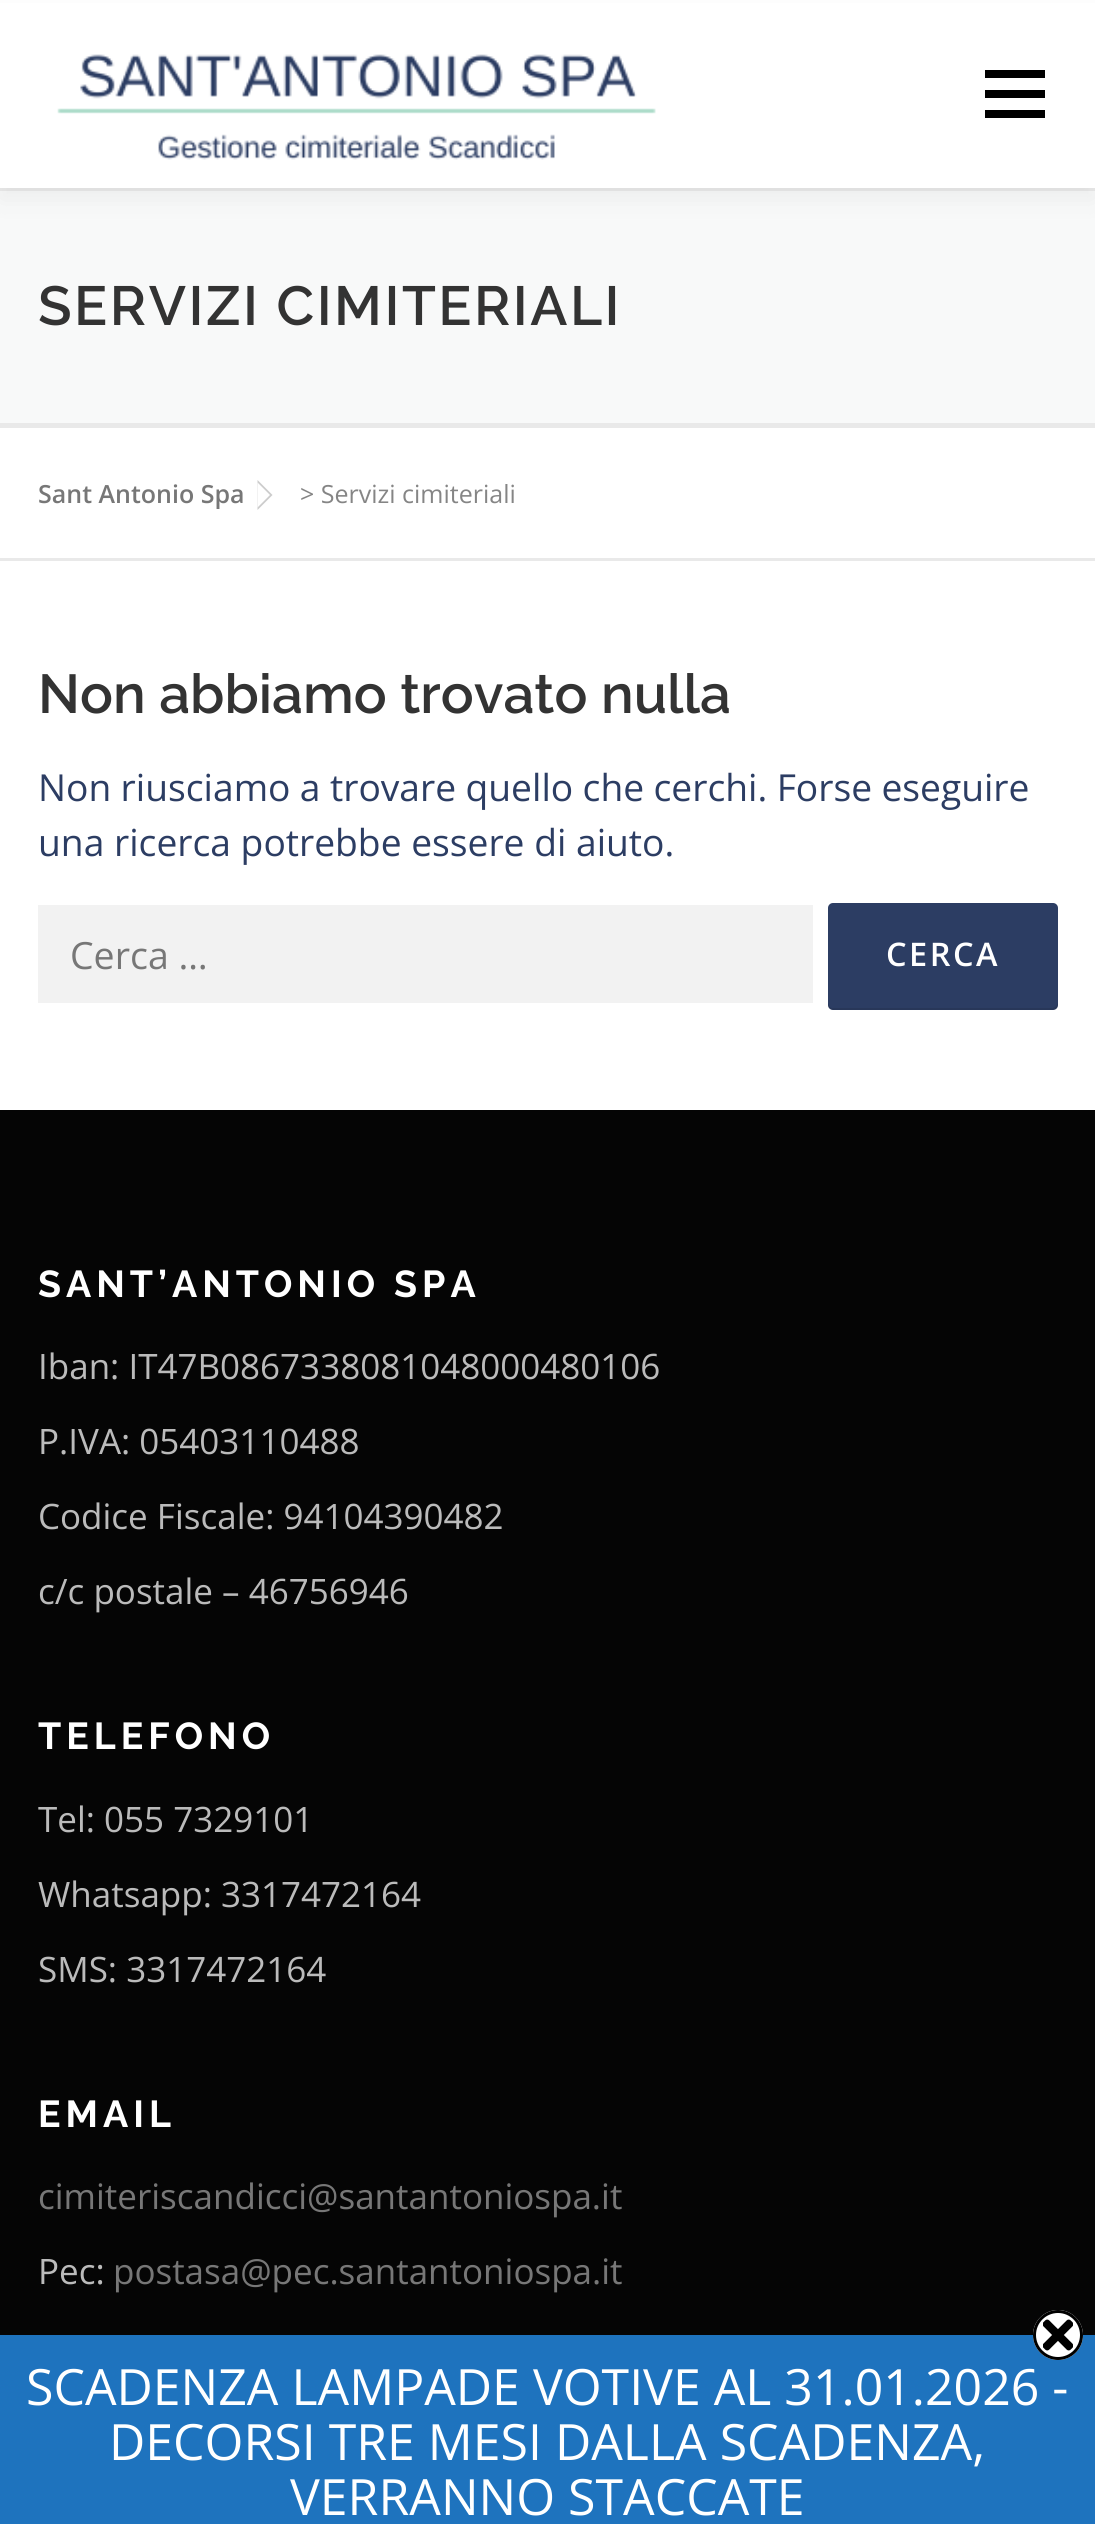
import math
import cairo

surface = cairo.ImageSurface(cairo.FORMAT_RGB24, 1095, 2524)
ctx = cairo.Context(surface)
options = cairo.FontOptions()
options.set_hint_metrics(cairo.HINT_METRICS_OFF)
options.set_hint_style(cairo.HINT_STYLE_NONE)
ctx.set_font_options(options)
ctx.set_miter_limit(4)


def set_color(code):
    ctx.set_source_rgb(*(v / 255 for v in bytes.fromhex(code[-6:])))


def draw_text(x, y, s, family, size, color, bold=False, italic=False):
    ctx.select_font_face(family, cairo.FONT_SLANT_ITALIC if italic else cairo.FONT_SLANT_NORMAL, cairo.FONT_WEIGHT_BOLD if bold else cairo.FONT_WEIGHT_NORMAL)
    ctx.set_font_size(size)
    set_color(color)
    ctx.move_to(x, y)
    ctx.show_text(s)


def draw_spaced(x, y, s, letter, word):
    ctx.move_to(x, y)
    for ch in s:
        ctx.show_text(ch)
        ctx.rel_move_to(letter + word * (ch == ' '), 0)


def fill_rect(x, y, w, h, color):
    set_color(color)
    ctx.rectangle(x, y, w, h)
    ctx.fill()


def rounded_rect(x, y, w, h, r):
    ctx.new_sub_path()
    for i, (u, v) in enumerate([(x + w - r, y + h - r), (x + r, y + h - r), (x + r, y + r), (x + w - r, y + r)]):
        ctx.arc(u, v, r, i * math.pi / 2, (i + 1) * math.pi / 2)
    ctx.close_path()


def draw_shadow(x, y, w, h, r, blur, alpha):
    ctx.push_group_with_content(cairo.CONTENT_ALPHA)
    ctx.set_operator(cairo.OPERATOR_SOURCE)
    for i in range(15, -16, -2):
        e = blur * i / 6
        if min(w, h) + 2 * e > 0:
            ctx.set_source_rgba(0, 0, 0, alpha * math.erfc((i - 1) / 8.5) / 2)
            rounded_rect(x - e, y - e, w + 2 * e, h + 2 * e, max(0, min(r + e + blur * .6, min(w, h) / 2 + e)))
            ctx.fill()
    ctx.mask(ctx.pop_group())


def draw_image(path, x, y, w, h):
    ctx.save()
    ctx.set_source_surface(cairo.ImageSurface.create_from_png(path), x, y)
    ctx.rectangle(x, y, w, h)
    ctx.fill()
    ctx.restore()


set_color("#ffffff")
ctx.paint()
fill_rect(0, 191, 1095, 232, "#f8f9f9")
fill_rect(0, 188, 1095, 3, "#e9e9e9")
set_color("#323232")
draw_shadow(0, 13, 1095, 187, 0, 12.5, 0.06)
fill_rect(0, 3, 1095, 185, "#ffffff")
draw_image("assets/img1.png", 57, 54, 599, 106)
fill_rect(985, 90, 60, 8, "#000000")
fill_rect(985, 70, 60, 8, "#000000")
fill_rect(985, 110, 60, 8, "#000000")
ctx.select_font_face("Raleway SemiBold")
ctx.set_font_size(55)
set_color("#333333")
draw_spaced(38, 325, "SERVIZI CIMITERIALI", 2.5, 0)
fill_rect(0, 423, 1095, 5, "#e9e9e9")
fill_rect(0, 558, 1095, 3, "#e9e9e9")
set_color("#cccccc")
ctx.new_path()
ctx.move_to(257.5, 510)
ctx.line_to(257.5, 480)
ctx.line_to(272.5, 495)
ctx.close_path()
ctx.fill()
draw_text(38, 503, "Sant Antonio Spa", "Open Sans SemiBold", 25, "#777777")
set_color("#ffffff")
ctx.new_path()
ctx.move_to(257.5, 507.5)
ctx.line_to(257.5, 482.5)
ctx.line_to(270, 495)
ctx.close_path()
ctx.fill()
draw_text(300, 503, "> Servizi cimiteriali", "Open Sans", 25, "#858585")
draw_text(38, 713, "Non abbiamo trovato nulla", "Raleway SemiBold", 54.75, "#333333")
ctx.select_font_face("Open Sans")
ctx.set_font_size(37.2)
set_color("#2c3d63")
draw_spaced(38, 801, "Non riusciamo a trovare quello che cerchi. Forse eseguire", 0, -0.25)
draw_text(38, 856, "una ricerca potrebbe essere di aiuto.", "Open Sans", 37.2, "#2c3d63")
fill_rect(38, 905, 775, 98, "#f2f2f2")
draw_text(70, 969, "Cerca …", "Open Sans", 37.5, "#777777")
set_color("#2c3d63")
rounded_rect(828, 903, 230, 107, 5)
ctx.fill()
ctx.set_source_rgba(0, 0, 0, 0.1)
ctx.new_path()
ctx.move_to(828, 1002)
ctx.line_to(828, 1005)
ctx.curve_to(828, 1008, 830, 1010, 833, 1010)
ctx.line_to(1053, 1010)
ctx.curve_to(1056, 1010, 1058, 1008, 1058, 1005)
ctx.line_to(1058, 1002)
ctx.curve_to(1058, 1005, 1055, 1008, 1052, 1008)
ctx.line_to(832, 1008)
ctx.curve_to(830, 1008, 828, 1005, 828, 1002)
ctx.close_path()
ctx.fill()
ctx.select_font_face("Open Sans SemiBold")
ctx.set_font_size(32.5)
set_color("#ffffff")
draw_spaced(886, 966, "CERCA", 2.5, 0)
fill_rect(0, 1110, 1095, 1225, "#050505")
ctx.select_font_face("Raleway", cairo.FONT_SLANT_NORMAL, cairo.FONT_WEIGHT_BOLD)
ctx.set_font_size(37.5)
set_color("#ffffff")
draw_spaced(38, 1297, "SANT’ANTONIO SPA", 5, 0)
draw_text(38, 1379, "Iban: IT47B0867338081048000480106", "Open Sans", 35, "#bbbbbb")
draw_text(38, 1454, "P.IVA: 05403110488", "Open Sans", 35, "#bbbbbb")
draw_text(38, 1529, "Codice Fiscale: 94104390482", "Open Sans", 35, "#bbbbbb")
draw_text(38, 1604, "c/c postale – 46756946", "Open Sans", 35, "#bbbbbb")
ctx.select_font_face("Raleway", cairo.FONT_SLANT_NORMAL, cairo.FONT_WEIGHT_BOLD)
ctx.set_font_size(37.5)
set_color("#ffffff")
draw_spaced(38, 1749, "TELEFONO", 5, 0)
draw_text(38, 1832, "Tel: 055 7329101", "Open Sans", 35, "#bbbbbb")
draw_text(38, 1907, "Whatsapp: 3317472164", "Open Sans", 35, "#bbbbbb")
draw_text(38, 1982, "SMS: 3317472164", "Open Sans", 35, "#bbbbbb")
ctx.select_font_face("Raleway", cairo.FONT_SLANT_NORMAL, cairo.FONT_WEIGHT_BOLD)
ctx.set_font_size(37.5)
set_color("#ffffff")
draw_spaced(38, 2127, "EMAIL", 5, 0)
draw_text(38, 2209, "cimiteriscandicci@santantoniospa.it", "Open Sans", 35, "#777777")
draw_text(38, 2284, "Pec:", "Open Sans", 35, "#bbbbbb")
draw_text(113, 2284, "postasa@pec.santantoniospa.it", "Open Sans", 35, "#777777")
fill_rect(0, 2335, 1095, 189, "#1e73be")
set_color("#ffffff")
ctx.new_path()
ctx.arc(1058, 2335, 25, 0, 2 * math.pi)
ctx.fill()
draw_image("assets/img2.png", 1043, 2319, 30, 32)
ctx.arc(1058, 2335, 23.5, 0, 2 * math.pi)
set_color("#000000")
ctx.set_line_width(3)
ctx.stroke()
draw_text(26, 2405, "SCADENZA LAMPADE VOTIVE AL 31.01.2026 -", "Open Sans", 50, "#ffffff")
draw_text(109, 2460, "DECORSI TRE MESI DALLA SCADENZA,", "Open Sans", 50, "#ffffff")
draw_text(290, 2515, "VERRANNO STACCATE", "Open Sans", 50, "#ffffff")
surface.write_to_png("output.png")
